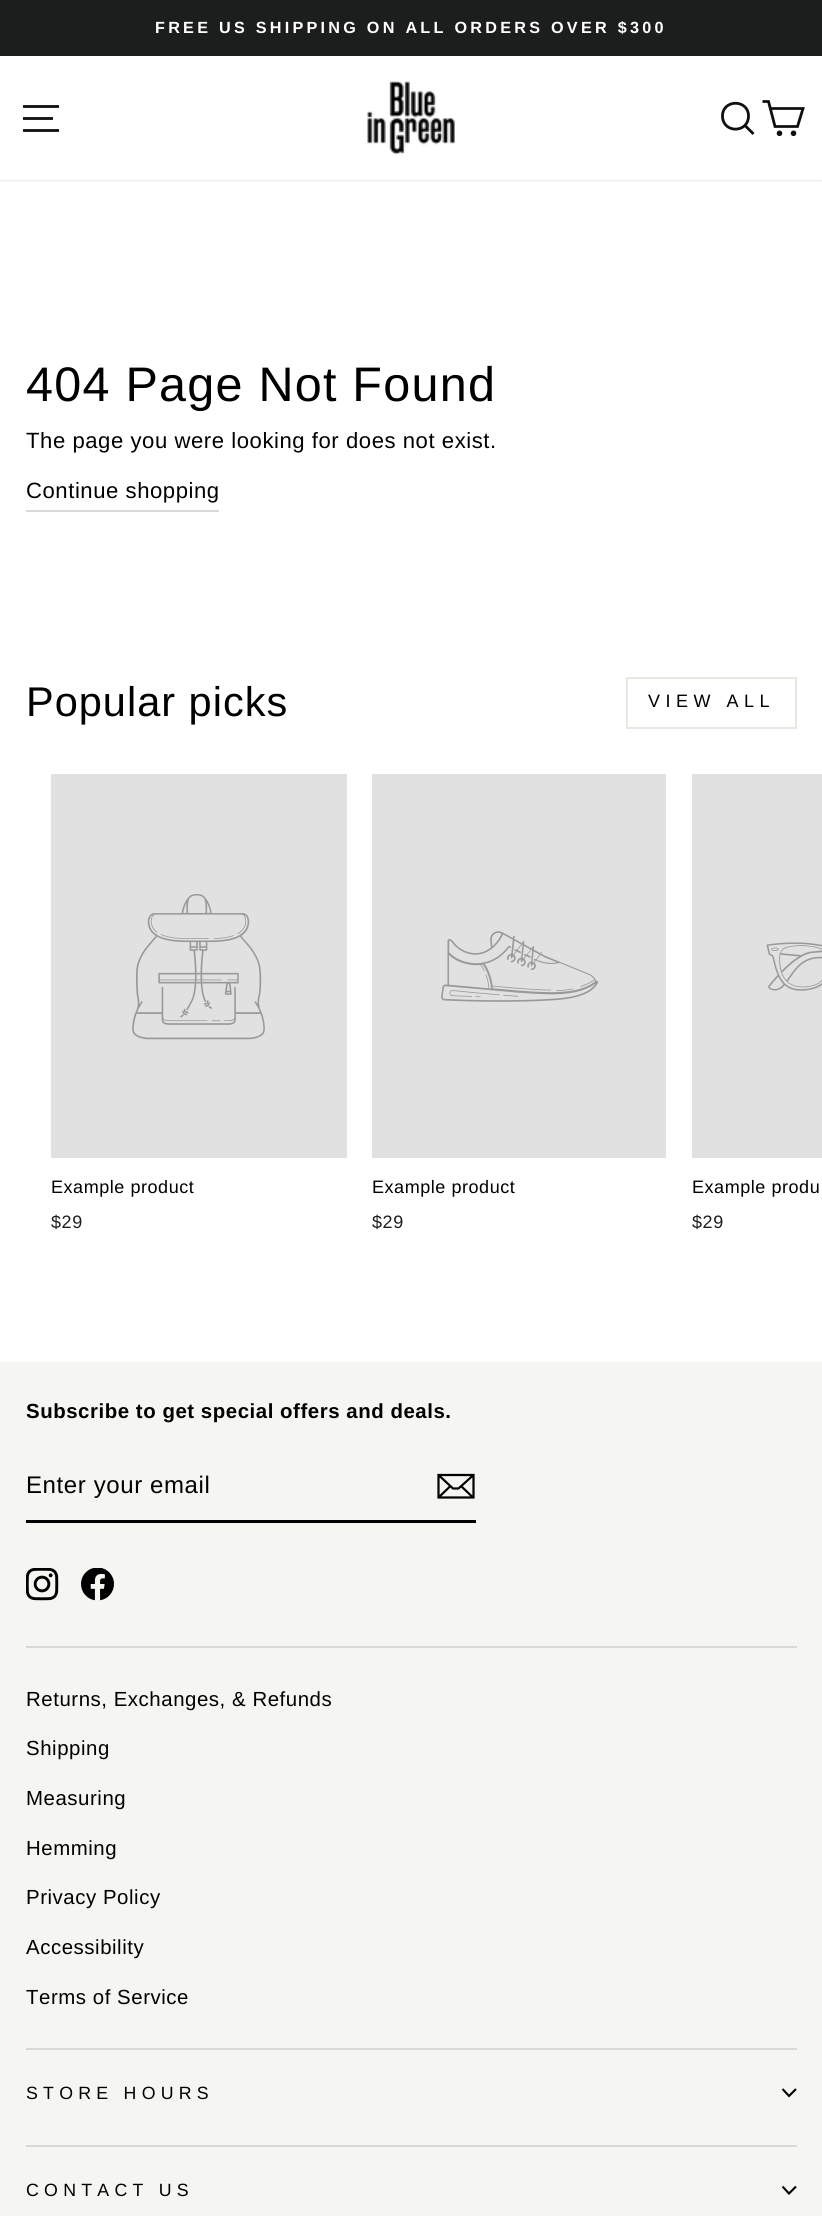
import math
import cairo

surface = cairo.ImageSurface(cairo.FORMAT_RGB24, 822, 2216)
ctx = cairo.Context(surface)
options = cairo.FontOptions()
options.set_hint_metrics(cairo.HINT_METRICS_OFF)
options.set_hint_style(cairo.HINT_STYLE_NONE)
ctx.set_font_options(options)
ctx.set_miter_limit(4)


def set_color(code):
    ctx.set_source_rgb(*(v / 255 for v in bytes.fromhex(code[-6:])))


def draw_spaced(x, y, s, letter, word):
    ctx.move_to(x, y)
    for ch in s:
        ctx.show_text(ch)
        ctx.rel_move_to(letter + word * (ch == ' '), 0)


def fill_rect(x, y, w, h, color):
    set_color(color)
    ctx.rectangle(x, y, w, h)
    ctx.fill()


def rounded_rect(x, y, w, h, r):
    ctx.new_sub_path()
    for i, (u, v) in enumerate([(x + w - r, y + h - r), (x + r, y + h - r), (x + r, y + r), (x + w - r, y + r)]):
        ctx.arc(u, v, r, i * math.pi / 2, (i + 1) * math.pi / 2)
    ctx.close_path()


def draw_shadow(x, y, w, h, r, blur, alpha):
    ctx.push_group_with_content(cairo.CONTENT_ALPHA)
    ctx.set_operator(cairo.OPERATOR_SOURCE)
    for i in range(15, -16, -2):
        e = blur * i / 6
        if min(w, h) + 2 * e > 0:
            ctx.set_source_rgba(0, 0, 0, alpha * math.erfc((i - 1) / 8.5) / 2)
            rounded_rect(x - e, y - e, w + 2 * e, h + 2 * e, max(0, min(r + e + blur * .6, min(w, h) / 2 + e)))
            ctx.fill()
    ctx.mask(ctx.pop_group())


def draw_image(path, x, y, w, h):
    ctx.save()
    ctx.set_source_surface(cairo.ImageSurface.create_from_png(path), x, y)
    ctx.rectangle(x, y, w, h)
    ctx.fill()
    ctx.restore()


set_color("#ffffff")
ctx.paint()
fill_rect(0, 0, 822, 56, "#1c1d1d")
ctx.select_font_face("Liberation Sans", cairo.FONT_SLANT_NORMAL, cairo.FONT_WEIGHT_BOLD)
ctx.set_font_size(16.2)
set_color("#ffffff")
draw_spaced(155, 33, "FREE US SHIPPING ON ALL ORDERS OVER $300", 3.25, 0)
ctx.save()
ctx.set_fill_rule(cairo.FILL_RULE_EVEN_ODD)
ctx.new_path()
ctx.move_to(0, 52)
ctx.line_to(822, 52)
ctx.line_to(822, 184)
ctx.line_to(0, 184)
ctx.close_path()
ctx.move_to(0, 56)
ctx.line_to(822, 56)
ctx.line_to(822, 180)
ctx.line_to(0, 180)
ctx.close_path()
ctx.clip()
set_color("#000000")
draw_shadow(0, 56, 822, 124, 0, 1, 0.2)
ctx.restore()
ctx.new_path()
ctx.move_to(23, 106.5)
ctx.line_to(59, 106.5)
ctx.move_to(23, 118.5)
ctx.line_to(53, 118.5)
ctx.move_to(23, 130.5)
ctx.line_to(59, 130.5)
set_color("#0f0f0f")
ctx.set_line_width(2.8)
ctx.stroke()
draw_image("assets/img1.png", 367, 81, 88, 74)
ctx.new_path()
ctx.move_to(748.5, 116)
ctx.curve_to(748.5, 133.5, 722.5, 133.5, 722.5, 116)
ctx.curve_to(722.5, 99, 748.5, 99, 748.5, 116)
ctx.close_path()
ctx.move_to(753.5, 134)
ctx.line_to(745, 125.5)
ctx.stroke()
ctx.new_path()
ctx.move_to(770.5, 108.5)
ctx.line_to(803, 108.5)
ctx.line_to(797.5, 126.5)
ctx.line_to(775, 126.5)
ctx.line_to(768.5, 101.5)
ctx.line_to(762.5, 101.5)
ctx.stroke()
ctx.arc(779.5, 133.3, 1.4, 0, 2 * math.pi)
ctx.stroke()
ctx.arc(793.5, 133.3, 1.4, 0, 2 * math.pi)
ctx.stroke()
ctx.select_font_face("Liberation Sans")
ctx.set_font_size(48.5)
set_color("#000000")
draw_spaced(26, 401, "404 Page Not Found", 1.25, 0)
ctx.set_font_size(22.1)
draw_spaced(26, 448, "The page you were looking for does not exist.", 0.55, 0)
fill_rect(26, 510, 193, 2, "#d9d9d9")
set_color("#000000")
draw_spaced(26, 498, "Continue shopping", 0.55, 0)
ctx.set_font_size(41.5)
draw_spaced(26, 716, "Popular picks", 1, 0)
ctx.rectangle(627, 678, 169, 50)
set_color("#e8e8e1")
ctx.set_line_width(2)
ctx.stroke()
ctx.set_font_size(18)
set_color("#000000")
draw_spaced(648, 707, "VIEW ALL", 5.5, 0)
fill_rect(51, 774, 296, 384, "#e1e1e1")
draw_image("assets/img2.png", 132, 894, 133, 146)
set_color("#000000")
draw_spaced(51, 1193, "Example product", 0.55, 0)
set_color("#1c1d1d")
draw_spaced(51, 1228, "$29", 0.55, 0)
fill_rect(372, 774, 294, 384, "#e1e1e1")
draw_image("assets/img3.png", 441, 931, 157, 71)
set_color("#000000")
draw_spaced(372, 1193, "Example product", 0.55, 0)
set_color("#1c1d1d")
draw_spaced(372, 1228, "$29", 0.55, 0)
fill_rect(692, 774, 130, 384, "#e1e1e1")
draw_image("assets/img4.png", 766, 942, 56, 49)
set_color("#000000")
draw_spaced(692, 1193, "Example produ", 0.55, 0)
set_color("#1c1d1d")
draw_spaced(692, 1228, "$29", 0.55, 0)
fill_rect(0, 1362, 822, 854, "#f5f5f1")
ctx.select_font_face("Liberation Sans", cairo.FONT_SLANT_NORMAL, cairo.FONT_WEIGHT_BOLD)
ctx.set_font_size(20.4)
set_color("#000000")
draw_spaced(26, 1418, "Subscribe to get special offers and deals.", 0.55, 0)
fill_rect(26, 1520, 450, 3, "#000000")
ctx.select_font_face("Liberation Sans")
ctx.set_font_size(24)
draw_spaced(26, 1493, "Enter your email", 0.6, 0)
ctx.new_path()
ctx.move_to(473.5, 1497.5)
ctx.line_to(438.5, 1497.5)
ctx.line_to(438.5, 1475)
ctx.line_to(473.5, 1475)
ctx.close_path()
ctx.move_to(438.5, 1475)
ctx.line_to(453, 1488.5)
ctx.line_to(458.5, 1488.5)
ctx.line_to(473.5, 1475)
ctx.move_to(450.5, 1486)
ctx.line_to(439, 1497)
ctx.move_to(473, 1497.5)
ctx.line_to(461, 1486)
ctx.set_line_width(2.2)
ctx.stroke()
draw_image("assets/img5.png", 26, 1568, 33, 33)
draw_image("assets/img6.png", 81, 1568, 33, 33)
fill_rect(26, 1646, 771, 2, "#d8d8d4")
ctx.set_font_size(20.4)
set_color("#000000")
draw_spaced(26, 1706, "Returns, Exchanges, & Refunds", 0.55, 0)
draw_spaced(26, 1755, "Shipping", 0.55, 0)
draw_spaced(26, 1805, "Measuring", 0.55, 0)
draw_spaced(26, 1855, "Hemming", 0.55, 0)
draw_spaced(26, 1904, "Privacy Policy", 0.55, 0)
draw_spaced(26, 1954, "Accessibility", 0.55, 0)
draw_spaced(26, 2004, "Terms of Service", 0.55, 0)
fill_rect(26, 2048, 771, 2, "#d8d8d4")
ctx.set_font_size(17.75)
set_color("#000000")
draw_spaced(26, 2099, "STORE HOURS", 5.25, 0)
ctx.new_path()
ctx.move_to(782.5, 2089)
ctx.line_to(789, 2096)
ctx.line_to(796, 2089)
ctx.set_line_width(2.1)
ctx.stroke()
fill_rect(26, 2145, 771, 2, "#d8d8d4")
set_color("#000000")
draw_spaced(26, 2196, "CONTACT US", 5.25, 0)
ctx.new_path()
ctx.move_to(782.5, 2186.5)
ctx.line_to(789, 2193.5)
ctx.line_to(796, 2186.5)
ctx.stroke()
surface.write_to_png("output.png")
